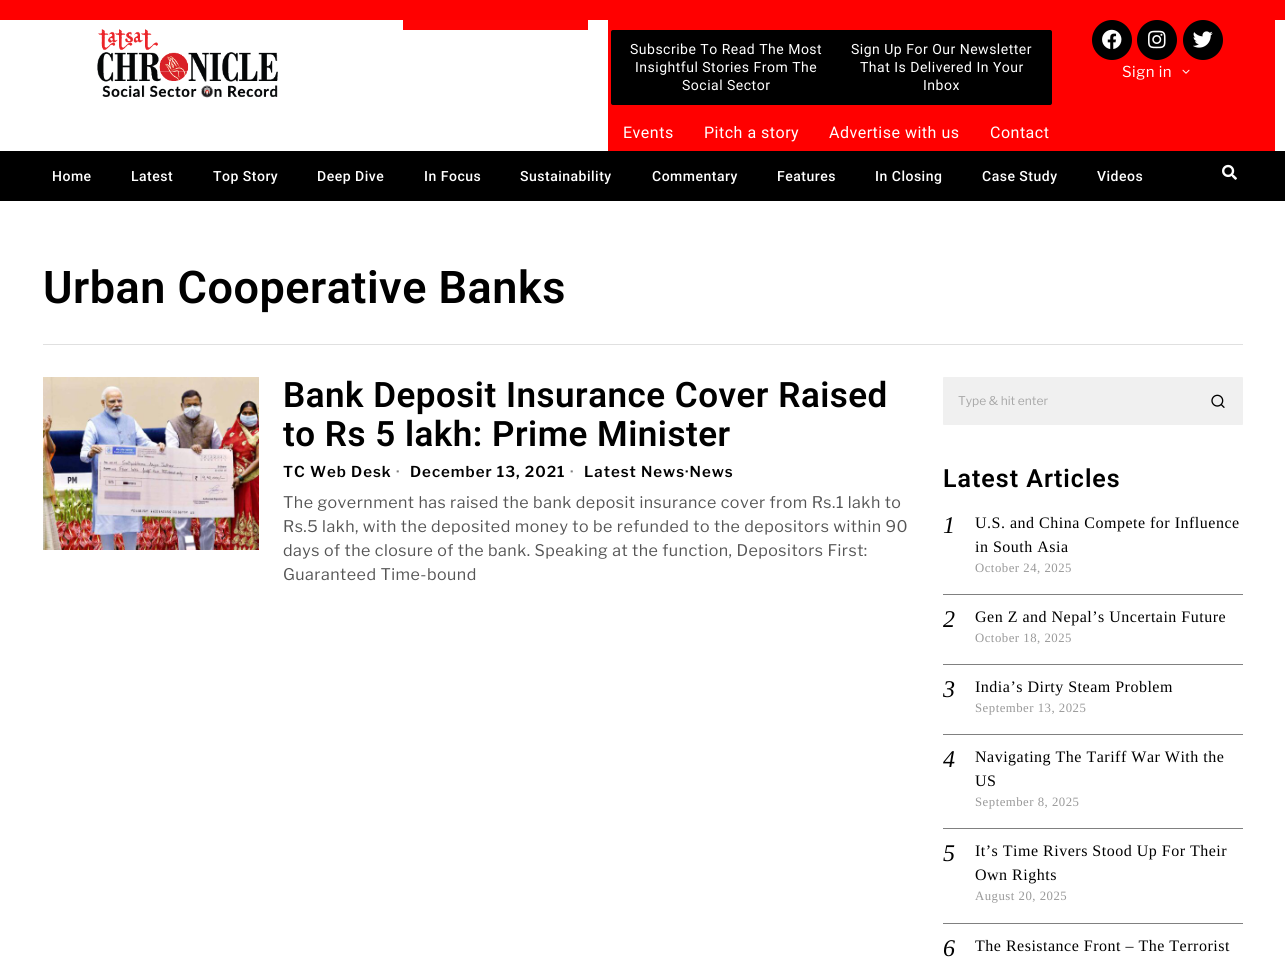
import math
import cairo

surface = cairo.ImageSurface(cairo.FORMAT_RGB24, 1285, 972)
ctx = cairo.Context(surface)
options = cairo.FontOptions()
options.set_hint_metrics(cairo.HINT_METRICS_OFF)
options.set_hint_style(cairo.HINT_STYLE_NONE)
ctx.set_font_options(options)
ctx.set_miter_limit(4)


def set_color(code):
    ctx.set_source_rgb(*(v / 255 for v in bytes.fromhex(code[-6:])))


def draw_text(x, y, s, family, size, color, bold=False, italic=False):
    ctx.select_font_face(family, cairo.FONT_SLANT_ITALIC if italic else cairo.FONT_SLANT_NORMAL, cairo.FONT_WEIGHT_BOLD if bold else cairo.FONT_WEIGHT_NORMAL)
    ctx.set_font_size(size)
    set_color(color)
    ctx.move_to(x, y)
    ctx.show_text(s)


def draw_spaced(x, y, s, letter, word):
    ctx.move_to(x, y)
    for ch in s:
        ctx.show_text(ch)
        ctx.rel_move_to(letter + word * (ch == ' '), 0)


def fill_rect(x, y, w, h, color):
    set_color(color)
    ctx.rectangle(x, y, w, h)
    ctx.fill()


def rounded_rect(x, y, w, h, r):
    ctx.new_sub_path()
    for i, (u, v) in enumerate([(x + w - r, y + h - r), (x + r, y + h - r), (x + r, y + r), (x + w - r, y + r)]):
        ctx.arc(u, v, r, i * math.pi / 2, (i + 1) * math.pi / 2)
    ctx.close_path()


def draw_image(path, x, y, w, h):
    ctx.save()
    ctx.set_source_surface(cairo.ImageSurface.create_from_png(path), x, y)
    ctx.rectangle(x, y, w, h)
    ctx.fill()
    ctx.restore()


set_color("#ffffff")
ctx.paint()
fill_rect(0, 0, 1285, 20, "#ff0000")
fill_rect(403, 20, 185, 10, "#ff0404")
draw_image("assets/img1.png", 97, 29, 181, 69)
fill_rect(608, 20, 667, 131, "#ff0000")
set_color("#000000")
rounded_rect(611, 30, 230, 75, 2)
ctx.fill()
ctx.select_font_face("Roboto")
ctx.set_font_size(14)
set_color("#ffffff")
draw_spaced(630, 54, "Subscribe To Read The Most", 0.5, 0)
draw_spaced(635, 72, "Insightful Stories From The", 0.5, 0)
draw_spaced(682, 90, "Social Sector", 0.5, 0)
set_color("#000000")
rounded_rect(832, 30, 220, 75, 2)
ctx.fill()
set_color("#ffffff")
draw_spaced(851, 54, "Sign Up For Our Newsletter", 0.5, 0)
draw_spaced(860, 72, "That Is Delivered In Your", 0.5, 0)
draw_spaced(923, 90, "Inbox", 0.5, 0)
set_color("#000000")
ctx.new_path()
ctx.arc(1112, 40, 20, 0, 2 * math.pi)
ctx.fill()
draw_image("assets/img2.png", 1102, 29, 20, 20)
ctx.arc(1157, 40, 20, 0, 2 * math.pi)
ctx.fill()
draw_image("assets/img3.png", 1148, 30, 18, 19)
ctx.arc(1203, 40, 20, 0, 2 * math.pi)
ctx.fill()
draw_image("assets/img4.png", 1193, 31, 20, 17)
ctx.select_font_face("Libre Franklin")
ctx.set_font_size(15)
set_color("#ffffff")
draw_spaced(1122, 77, "Sign in", 0.5, 0)
draw_image("assets/img5.png", 1182, 69, 8, 5)
ctx.select_font_face("Roboto")
ctx.set_font_size(16)
draw_spaced(623, 138, "Events", 0.5, 0)
draw_spaced(704, 138, "Pitch a story", 0.5, 0)
draw_spaced(829, 138, "Advertise with us", 0.5, 0)
draw_spaced(990, 138, "Contact", 0.5, 0)
fill_rect(0, 151, 1285, 50, "#000000")
ctx.select_font_face("Roboto Medium")
ctx.set_font_size(14)
set_color("#ffffff")
draw_spaced(52, 181, "Home", 0.5, 0)
draw_spaced(131, 181, "Latest", 0.5, 0)
draw_spaced(213, 181, "Top Story", 0.5, 0)
draw_spaced(317, 181, "Deep Dive", 0.5, 0)
draw_spaced(424, 181, "In Focus", 0.5, 0)
draw_spaced(520, 181, "Sustainability", 0.5, 0)
draw_spaced(652, 181, "Commentary", 0.5, 0)
draw_spaced(777, 181, "Features", 0.5, 0)
draw_spaced(875, 181, "In Closing", 0.5, 0)
draw_spaced(982, 181, "Case Study", 0.5, 0)
draw_spaced(1097, 181, "Videos", 0.5, 0)
draw_image("assets/img6.png", 1222, 164, 15, 16)
fill_rect(43, 344, 1200, 1, "#e0e0e0")
ctx.select_font_face("Roboto SemiBold")
ctx.set_font_size(45)
set_color("#000000")
draw_spaced(43, 303, "Urban Cooperative Banks", 0.5, 0)
draw_image("assets/img7.png", 43, 377, 216, 173)
ctx.set_font_size(35)
draw_spaced(283, 407, "Bank Deposit Insurance Cover Raised", 0.5, 0)
draw_spaced(283, 446, "to Rs 5 lakh: Prime Minister", 0.5, 0)
ctx.select_font_face("Libre Franklin SemiBold")
ctx.set_font_size(15)
draw_spaced(283, 477, "TC Web Desk", 1, 0)
set_color("#808080")
draw_spaced(396, 477, "·", 1, 0)
set_color("#000000")
draw_spaced(410, 477, "December 13, 2021", 1, 0)
set_color("#808080")
draw_spaced(570, 477, "·", 1, 0)
set_color("#000000")
draw_spaced(584, 477, "Latest News·News", 1, 0)
ctx.select_font_face("Libre Franklin")
ctx.set_font_size(16)
set_color("#555555")
draw_spaced(283, 508, "The government has raised the bank deposit insurance cover from Rs.1 lakh to", 0.5, 0)
draw_spaced(283, 532, "Rs.5 lakh, with the deposited money to be refunded to the depositors within 90", 0.5, 0)
draw_spaced(283, 556, "days of the closure of the bank. Speaking at the function, Depositors First:", 0.5, 0)
draw_spaced(283, 580, "Guaranteed Time-bound", 0.5, 0)
set_color("#f0f0f0")
rounded_rect(943.5, 377.5, 299, 47, 0.5)
ctx.fill_preserve()
ctx.set_line_width(1)
ctx.stroke()
draw_text(958, 405, "Type & hit enter", "Libre Franklin", 12, "#a7a7a7")
draw_image("assets/img8.png", 1211, 394, 14, 14)
ctx.select_font_face("Roboto SemiBold")
ctx.set_font_size(25)
set_color("#000000")
draw_spaced(943, 487, "Latest Articles", 1, 0)
ctx.select_font_face("Liberation Serif", cairo.FONT_SLANT_ITALIC)
ctx.set_font_size(24)
draw_spaced(943, 533, "1", 0.5, 0)
ctx.select_font_face("Tinos")
ctx.set_font_size(16)
draw_spaced(975, 528, "U.S. and China Compete for Influence", 0.5, 0)
draw_spaced(975, 552, "in South Asia", 0.5, 0)
ctx.set_font_size(12.75)
set_color("#999999")
draw_spaced(975, 572, "October 24, 2025", 0.5, 0)
fill_rect(943, 594, 300, 1, "#808080")
ctx.select_font_face("Liberation Serif", cairo.FONT_SLANT_ITALIC)
ctx.set_font_size(24)
set_color("#000000")
draw_spaced(943, 627, "2", 0.5, 0)
ctx.select_font_face("Tinos")
ctx.set_font_size(16)
draw_spaced(975, 622, "Gen Z and Nepal’s Uncertain Future", 0.5, 0)
ctx.set_font_size(12.75)
set_color("#999999")
draw_spaced(975, 642, "October 18, 2025", 0.5, 0)
fill_rect(943, 664, 300, 1, "#808080")
ctx.select_font_face("Liberation Serif", cairo.FONT_SLANT_ITALIC)
ctx.set_font_size(24)
set_color("#000000")
draw_spaced(943, 697, "3", 0.5, 0)
ctx.select_font_face("Tinos")
ctx.set_font_size(16)
draw_spaced(975, 692, "India’s Dirty Steam Problem", 0.5, 0)
ctx.set_font_size(12.75)
set_color("#999999")
draw_spaced(975, 712, "September 13, 2025", 0.5, 0)
fill_rect(943, 734, 300, 1, "#808080")
ctx.select_font_face("Liberation Serif", cairo.FONT_SLANT_ITALIC)
ctx.set_font_size(24)
set_color("#000000")
draw_spaced(943, 767, "4", 0.5, 0)
ctx.select_font_face("Tinos")
ctx.set_font_size(16)
draw_spaced(975, 762, "Navigating The Tariff War With the", 0.5, 0)
draw_spaced(975, 786, "US", 0.5, 0)
ctx.set_font_size(12.75)
set_color("#999999")
draw_spaced(975, 806, "September 8, 2025", 0.5, 0)
fill_rect(943, 828, 300, 1, "#808080")
ctx.select_font_face("Liberation Serif", cairo.FONT_SLANT_ITALIC)
ctx.set_font_size(24)
set_color("#000000")
draw_spaced(943, 861, "5", 0.5, 0)
ctx.select_font_face("Tinos")
ctx.set_font_size(16)
draw_spaced(975, 856, "It’s Time Rivers Stood Up For Their", 0.5, 0)
draw_spaced(975, 880, "Own Rights", 0.5, 0)
ctx.set_font_size(12.75)
set_color("#999999")
draw_spaced(975, 900, "August 20, 2025", 0.5, 0)
fill_rect(943, 923, 300, 1, "#808080")
ctx.select_font_face("Liberation Serif", cairo.FONT_SLANT_ITALIC)
ctx.set_font_size(24)
set_color("#000000")
draw_spaced(943, 956, "6", 0.5, 0)
ctx.select_font_face("Tinos")
ctx.set_font_size(16)
draw_spaced(975, 951, "The Resistance Front – The Terrorist", 0.5, 0)
surface.write_to_png("output.png")
